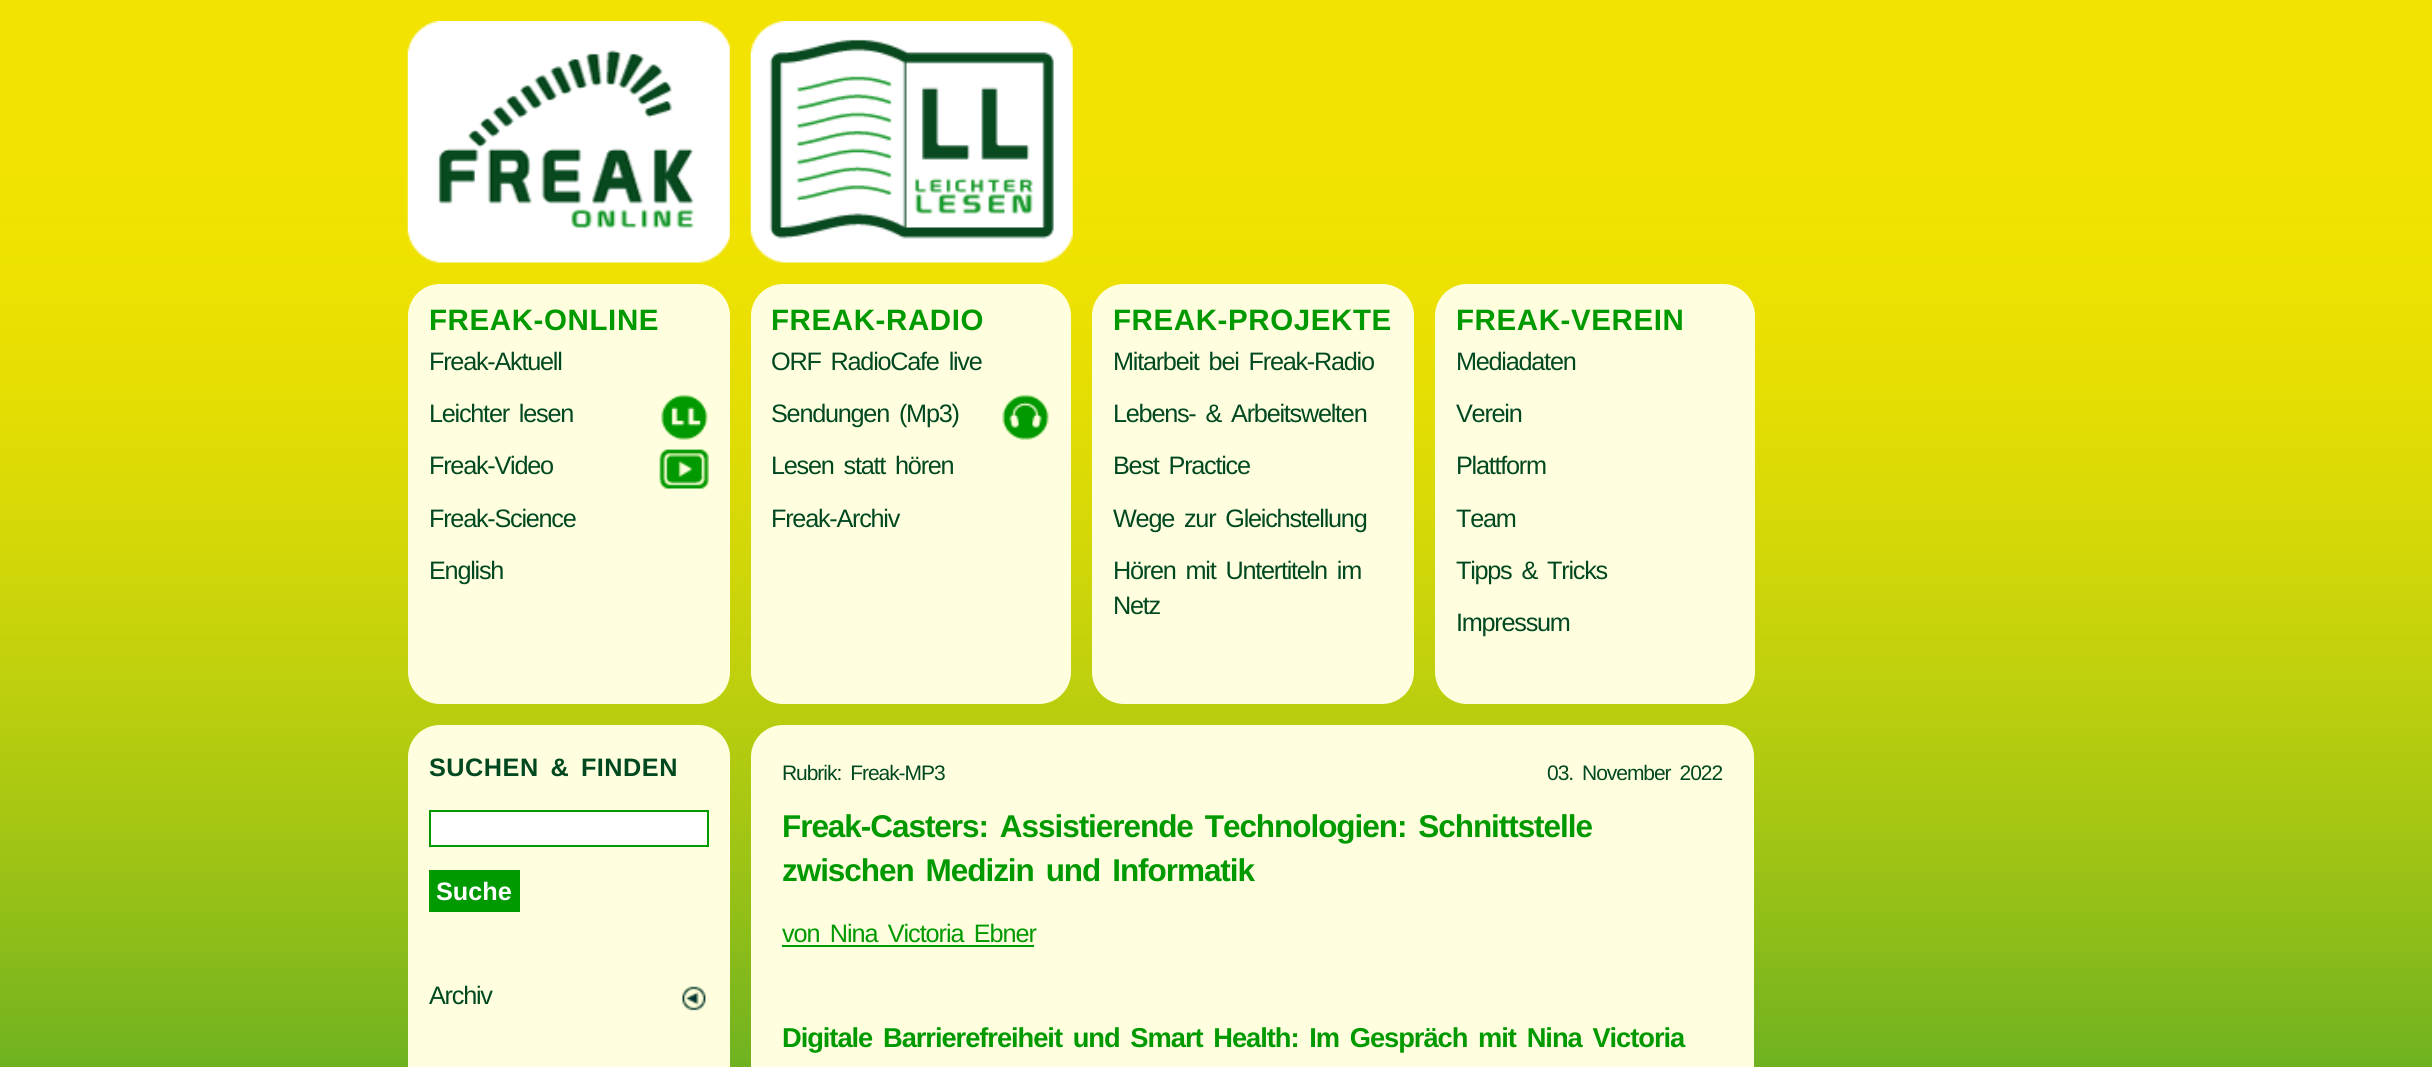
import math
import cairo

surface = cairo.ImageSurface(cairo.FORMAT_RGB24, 2432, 1067)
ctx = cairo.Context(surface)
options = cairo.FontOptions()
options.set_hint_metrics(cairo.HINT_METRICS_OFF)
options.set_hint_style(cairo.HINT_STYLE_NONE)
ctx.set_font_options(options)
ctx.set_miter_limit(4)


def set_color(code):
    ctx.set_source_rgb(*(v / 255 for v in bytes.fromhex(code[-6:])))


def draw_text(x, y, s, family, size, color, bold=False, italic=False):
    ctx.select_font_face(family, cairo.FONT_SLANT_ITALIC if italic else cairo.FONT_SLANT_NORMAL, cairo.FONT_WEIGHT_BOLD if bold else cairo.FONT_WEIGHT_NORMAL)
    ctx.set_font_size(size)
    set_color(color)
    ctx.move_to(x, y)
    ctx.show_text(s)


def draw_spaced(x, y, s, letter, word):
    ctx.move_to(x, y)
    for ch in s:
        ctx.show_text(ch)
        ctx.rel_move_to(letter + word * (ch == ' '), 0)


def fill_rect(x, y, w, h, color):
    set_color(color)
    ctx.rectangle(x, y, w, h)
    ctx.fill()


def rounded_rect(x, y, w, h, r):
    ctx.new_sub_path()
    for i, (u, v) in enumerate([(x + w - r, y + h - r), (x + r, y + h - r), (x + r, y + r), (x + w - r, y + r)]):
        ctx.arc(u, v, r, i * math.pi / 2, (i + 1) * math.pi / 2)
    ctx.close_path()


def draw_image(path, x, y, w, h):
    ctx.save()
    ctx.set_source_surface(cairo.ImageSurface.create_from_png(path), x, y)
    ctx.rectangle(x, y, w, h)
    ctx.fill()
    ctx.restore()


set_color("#ffffff")
ctx.paint()
draw_image("assets/img1.png", 0, 0, 2432, 1067)
draw_image("assets/img2.png", 407, 21, 323, 242)
draw_image("assets/img3.png", 750, 21, 323, 242)
set_color("#ffffdf")
rounded_rect(408, 284, 322, 420, 32)
ctx.fill()
ctx.select_font_face("Liberation Sans", cairo.FONT_SLANT_NORMAL, cairo.FONT_WEIGHT_BOLD)
ctx.set_font_size(29.5)
set_color("#009900")
draw_spaced(429, 330, "FREAK-ONLINE", 0.6, 0)
ctx.select_font_face("Liberation Sans")
ctx.set_font_size(25.25)
set_color("#004820")
draw_spaced(429, 370, "Freak-Aktuell", -1.25, 0)
draw_image("assets/img4.png", 661, 394, 47, 46)
draw_spaced(429, 422, "Leichter lesen", -1.25, 4.25)
draw_image("assets/img5.png", 659, 449, 50, 40)
draw_spaced(429, 474, "Freak-Video", -1.25, 0)
draw_spaced(429, 527, "Freak-Science", -1.25, 0)
draw_spaced(429, 579, "English", -1.25, 0)
set_color("#ffffdf")
rounded_rect(751, 284, 320, 420, 32)
ctx.fill()
ctx.select_font_face("Liberation Sans", cairo.FONT_SLANT_NORMAL, cairo.FONT_WEIGHT_BOLD)
ctx.set_font_size(29.5)
set_color("#009900")
draw_spaced(771, 330, "FREAK-RADIO", 0.6, 0)
ctx.select_font_face("Liberation Sans")
ctx.set_font_size(25.25)
set_color("#004820")
draw_spaced(771, 370, "ORF RadioCafe live", -1.25, 4.25)
draw_image("assets/img6.png", 1002, 394, 47, 46)
draw_spaced(771, 422, "Sendungen (Mp3)", -1.25, 4.25)
draw_spaced(771, 474, "Lesen statt hören", -1.25, 4.25)
draw_spaced(771, 527, "Freak-Archiv", -1.25, 0)
set_color("#ffffdf")
rounded_rect(1092, 284, 322, 420, 32)
ctx.fill()
ctx.select_font_face("Liberation Sans", cairo.FONT_SLANT_NORMAL, cairo.FONT_WEIGHT_BOLD)
ctx.set_font_size(29.5)
set_color("#009900")
draw_spaced(1113, 330, "FREAK-PROJEKTE", 0.6, 0)
ctx.select_font_face("Liberation Sans")
ctx.set_font_size(25.25)
set_color("#004820")
draw_spaced(1113, 370, "Mitarbeit bei Freak-Radio", -1.25, 4.25)
draw_spaced(1113, 422, "Lebens- & Arbeitswelten", -1.25, 4.25)
draw_spaced(1113, 474, "Best Practice", -1.25, 4.25)
draw_spaced(1113, 527, "Wege zur Gleichstellung", -1.25, 4.25)
draw_spaced(1113, 579, "Hören mit Untertiteln im", -1.25, 4.25)
draw_spaced(1113, 614, "Netz", -1.25, 0)
set_color("#ffffdf")
rounded_rect(1435, 284, 320, 420, 32)
ctx.fill()
ctx.select_font_face("Liberation Sans", cairo.FONT_SLANT_NORMAL, cairo.FONT_WEIGHT_BOLD)
ctx.set_font_size(29.5)
set_color("#009900")
draw_spaced(1456, 330, "FREAK-VEREIN", 0.6, 0)
ctx.select_font_face("Liberation Sans")
ctx.set_font_size(25.25)
set_color("#004820")
draw_spaced(1456, 370, "Mediadaten", -1.25, 0)
draw_spaced(1456, 422, "Verein", -1.25, 0)
draw_spaced(1456, 474, "Plattform", -1.25, 0)
draw_spaced(1456, 527, "Team", -1.25, 0)
draw_spaced(1456, 579, "Tipps & Tricks", -1.25, 4.25)
draw_spaced(1456, 631, "Impressum", -1.25, 0)
set_color("#ffffdf")
rounded_rect(408, 725, 322, 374, 32)
ctx.fill()
ctx.select_font_face("Liberation Sans", cairo.FONT_SLANT_NORMAL, cairo.FONT_WEIGHT_BOLD)
set_color("#004820")
draw_spaced(429, 776, "SUCHEN & FINDEN", 0.5, 4.25)
set_color("#ffffff")
ctx.rectangle(430, 811, 278, 35)
ctx.fill_preserve()
set_color("#009900")
ctx.stroke()
fill_rect(429, 870, 91, 42, "#009900")
draw_text(436, 900, "Suche", "Liberation Sans", 25.25, "#ffffff", bold=True)
draw_image("assets/img7.png", 682, 986, 24, 25)
ctx.select_font_face("Liberation Sans")
set_color("#004820")
draw_spaced(429, 1004, "Archiv", -1.25, 0)
set_color("#ffffdf")
rounded_rect(751, 725, 1003, 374, 32)
ctx.fill()
ctx.set_font_size(21)
set_color("#004820")
draw_spaced(782, 780, "Rubrik: Freak-MP3", -1.05, 4.25)
draw_spaced(1547, 780, "03. November 2022", -1.05, 4.25)
ctx.select_font_face("Liberation Sans", cairo.FONT_SLANT_NORMAL, cairo.FONT_WEIGHT_BOLD)
ctx.set_font_size(31.5)
set_color("#009900")
draw_spaced(782, 837, "Freak-Casters: Assistierende Technologien: Schnittstelle", -1.05, 4.25)
draw_spaced(782, 881, "zwischen Medizin und Informatik", -1.05, 4.25)
ctx.select_font_face("Liberation Sans")
ctx.set_font_size(25.25)
draw_spaced(782, 942, "von Nina Victoria Ebner", -1.05, 4.25)
fill_rect(782, 945, 252, 2, "#009900")
ctx.select_font_face("Liberation Sans", cairo.FONT_SLANT_NORMAL, cairo.FONT_WEIGHT_BOLD)
ctx.set_font_size(27.3)
draw_spaced(782, 1047, "Digitale Barrierefreiheit und Smart Health: Im Gespräch mit Nina Victoria", -1.05, 4.25)
surface.write_to_png("output.png")
